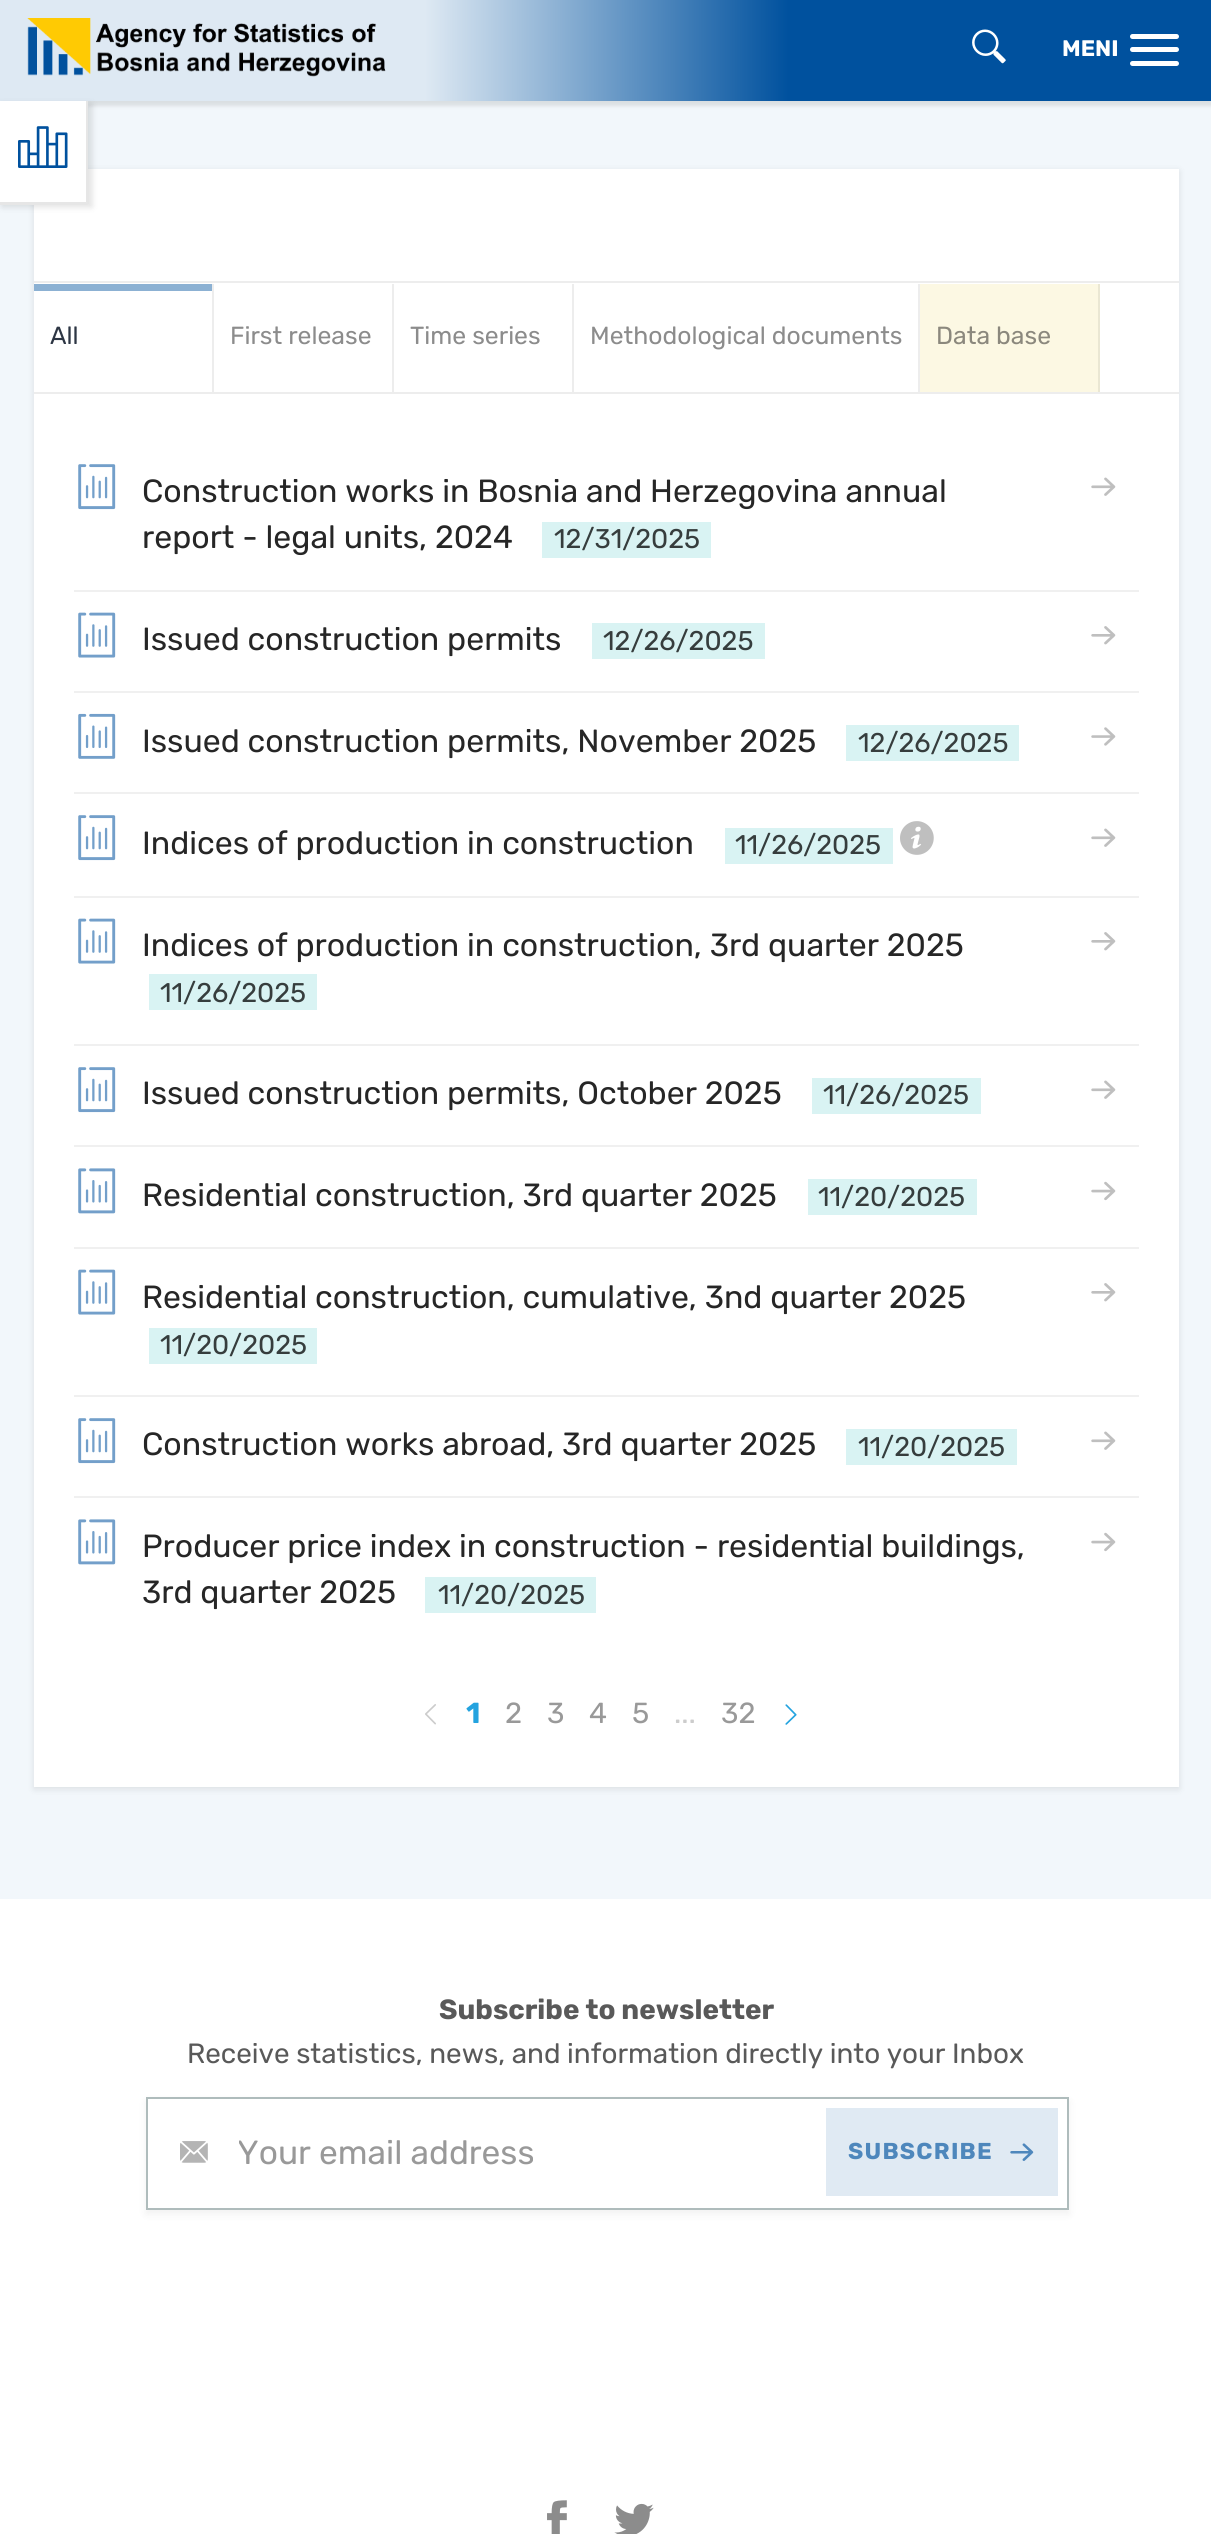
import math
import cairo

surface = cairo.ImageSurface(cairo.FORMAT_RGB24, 1211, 2534)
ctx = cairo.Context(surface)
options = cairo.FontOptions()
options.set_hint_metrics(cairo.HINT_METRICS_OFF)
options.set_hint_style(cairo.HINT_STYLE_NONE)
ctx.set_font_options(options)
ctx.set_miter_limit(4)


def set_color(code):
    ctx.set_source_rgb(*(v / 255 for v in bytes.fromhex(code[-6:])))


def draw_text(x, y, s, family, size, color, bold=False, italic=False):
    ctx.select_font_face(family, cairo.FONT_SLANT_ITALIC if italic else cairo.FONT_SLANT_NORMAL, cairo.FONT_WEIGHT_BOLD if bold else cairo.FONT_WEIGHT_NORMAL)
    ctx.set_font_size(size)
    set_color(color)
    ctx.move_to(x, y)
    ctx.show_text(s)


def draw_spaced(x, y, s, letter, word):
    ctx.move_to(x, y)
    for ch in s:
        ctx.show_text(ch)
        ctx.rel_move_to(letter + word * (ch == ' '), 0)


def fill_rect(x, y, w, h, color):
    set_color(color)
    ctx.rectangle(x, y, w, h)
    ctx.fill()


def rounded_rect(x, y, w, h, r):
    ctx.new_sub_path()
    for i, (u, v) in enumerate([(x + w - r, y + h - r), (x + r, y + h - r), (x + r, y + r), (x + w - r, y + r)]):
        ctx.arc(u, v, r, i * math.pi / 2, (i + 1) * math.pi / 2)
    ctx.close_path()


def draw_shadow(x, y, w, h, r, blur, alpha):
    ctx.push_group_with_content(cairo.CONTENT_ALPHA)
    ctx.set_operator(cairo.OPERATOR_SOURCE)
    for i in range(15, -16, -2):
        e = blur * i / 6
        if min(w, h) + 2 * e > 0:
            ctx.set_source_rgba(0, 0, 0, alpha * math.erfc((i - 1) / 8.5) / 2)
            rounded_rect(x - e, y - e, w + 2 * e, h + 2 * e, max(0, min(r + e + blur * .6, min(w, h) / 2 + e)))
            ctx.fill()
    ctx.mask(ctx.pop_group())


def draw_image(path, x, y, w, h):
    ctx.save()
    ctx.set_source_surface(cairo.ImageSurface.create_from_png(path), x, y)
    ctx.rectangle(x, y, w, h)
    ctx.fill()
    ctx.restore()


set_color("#f2f7fb")
ctx.paint()
set_color("#000000")
draw_shadow(0, 5, 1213, 101, 0, 2, 0.1)
gradient = cairo.LinearGradient(0, 51, 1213, 51)
gradient.add_color_stop_rgba(0.35, 0.871, 0.914, 0.953, 1)
gradient.add_color_stop_rgba(0.65, 0, 0.318, 0.62, 1)
ctx.set_source(gradient)
ctx.rectangle(0, 0, 1211, 101)
ctx.fill()
draw_image("assets/img1.png", 27, 18, 359, 59)
draw_image("assets/img2.png", 972, 29, 34, 35)
draw_text(1062, 56, "MENI", "Rubik", 22.5, "#ffffff", bold=True)
rounded_rect(1130, 34, 49, 5, 2.5)
ctx.fill()
rounded_rect(1130, 47, 49, 5, 2.5)
ctx.fill()
rounded_rect(1130, 61, 49, 5, 2.5)
ctx.fill()
set_color("#000000")
draw_shadow(34, 171, 1145, 1618, 0, 3.5, 0.1)
fill_rect(34, 169, 1145, 1618, "#ffffff")
set_color("#000000")
draw_shadow(2, 104, 90, 103, 0, 3.5, 0.12)
fill_rect(0, 101, 88, 104, "#ffffff")
set_color("#e6e6e6")
ctx.new_path()
ctx.move_to(88, 101)
ctx.line_to(88, 205)
ctx.line_to(86, 202)
ctx.line_to(86, 101)
ctx.close_path()
ctx.fill()
ctx.set_source_rgba(0, 0, 0, 0.1)
ctx.new_path()
ctx.move_to(88, 205)
ctx.line_to(-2, 205)
ctx.line_to(-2, 202)
ctx.line_to(86, 202)
ctx.close_path()
ctx.fill()
draw_image("assets/img3.png", 18, 126, 50, 42)
fill_rect(34, 281, 1145, 2, "#ededed")
fill_rect(34, 392, 1145, 2, "#ededed")
fill_rect(212, 284, 2, 108, "#ededed")
fill_rect(34, 284, 178, 7, "#8cb1d3")
draw_text(50, 344, "All", "Rubik", 24.75, "#2d3644")
fill_rect(392, 284, 2, 108, "#ededed")
draw_text(230, 344, "First release", "Rubik", 24.75, "#8c8c8c")
fill_rect(572, 284, 2, 108, "#ededed")
draw_text(410, 344, "Time series", "Rubik", 24.75, "#8c8c8c")
fill_rect(918, 284, 2, 108, "#ededed")
draw_text(590, 344, "Methodological documents", "Rubik", 24.75, "#8c8c8c")
fill_rect(920, 284, 178, 108, "#fcf8e3")
fill_rect(1098, 284, 2, 108, "#eae7d3")
draw_text(936, 344, "Data base", "Rubik", 24.75, "#8b887d")
draw_image("assets/img4.png", 78, 464, 38, 46)
draw_text(142, 502, "Construction works in Bosnia and Herzegovina annual", "Rubik", 32.05, "#262626")
draw_image("assets/img5.png", 1091, 477, 25, 19)
draw_text(142, 548, "report - legal units, 2024", "Rubik", 32.05, "#262626")
fill_rect(542, 522, 169, 36, "#d9f3f3")
draw_text(554, 548, "12/31/2025", "Rubik", 27, "#363d3d")
fill_rect(74, 590, 1065, 2, "#f0f0f0")
draw_image("assets/img6.png", 78, 612, 38, 46)
draw_text(142, 650, "Issued construction permits", "Rubik", 32.05, "#262626")
fill_rect(592, 623, 173, 36, "#d9f3f3")
draw_text(603, 650, "12/26/2025", "Rubik", 27, "#363d3d")
draw_image("assets/img7.png", 1091, 626, 25, 19)
fill_rect(74, 691, 1065, 2, "#f0f0f0")
draw_image("assets/img8.png", 78, 713, 38, 46)
draw_text(142, 752, "Issued construction permits, November 2025", "Rubik", 32.05, "#262626")
fill_rect(846, 725, 173, 36, "#d9f3f3")
draw_text(858, 752, "12/26/2025", "Rubik", 27, "#363d3d")
draw_image("assets/img9.png", 1091, 727, 25, 19)
fill_rect(74, 792, 1065, 2, "#f0f0f0")
draw_image("assets/img4.png", 78, 815, 38, 46)
draw_text(142, 854, "Indices of production in construction", "Rubik", 32.05, "#262626")
fill_rect(725, 828, 168, 36, "#d9f3f3")
draw_text(735, 854, "11/26/2025", "Rubik", 27, "#363d3d")
draw_image("assets/img10.png", 900, 821, 34, 34)
draw_image("assets/img5.png", 1091, 828, 25, 19)
fill_rect(74, 896, 1065, 2, "#f0f0f0")
draw_image("assets/img6.png", 78, 918, 38, 46)
draw_text(142, 956, "Indices of production in construction, 3rd quarter 2025", "Rubik", 32.05, "#262626")
draw_image("assets/img7.png", 1091, 932, 25, 19)
fill_rect(149, 974, 168, 36, "#d9f3f3")
draw_text(160, 1002, "11/26/2025", "Rubik", 27, "#363d3d")
fill_rect(74, 1044, 1065, 2, "#f0f0f0")
draw_image("assets/img4.png", 78, 1067, 38, 46)
draw_text(142, 1104, "Issued construction permits, October 2025", "Rubik", 32.05, "#262626")
fill_rect(812, 1078, 169, 36, "#d9f3f3")
draw_text(823, 1104, "11/26/2025", "Rubik", 27, "#363d3d")
draw_image("assets/img5.png", 1091, 1080, 25, 19)
fill_rect(74, 1145, 1065, 2, "#f0f0f0")
draw_image("assets/img11.png", 78, 1168, 38, 46)
draw_text(142, 1206, "Residential construction, 3rd quarter 2025", "Rubik", 32.05, "#262626")
fill_rect(808, 1179, 169, 36, "#d9f3f3")
draw_text(818, 1206, "11/20/2025", "Rubik", 27, "#363d3d")
draw_image("assets/img12.png", 1091, 1181, 25, 20)
fill_rect(74, 1247, 1065, 2, "#f0f0f0")
draw_image("assets/img6.png", 78, 1269, 38, 46)
draw_text(142, 1308, "Residential construction, cumulative, 3nd quarter 2025", "Rubik", 32.05, "#262626")
draw_image("assets/img7.png", 1091, 1283, 25, 19)
fill_rect(149, 1328, 168, 36, "#d9f3f3")
draw_text(160, 1354, "11/20/2025", "Rubik", 27, "#363d3d")
fill_rect(74, 1395, 1065, 2, "#f0f0f0")
draw_image("assets/img4.png", 78, 1418, 38, 46)
draw_text(142, 1455, "Construction works abroad, 3rd quarter 2025", "Rubik", 32.05, "#262626")
fill_rect(846, 1429, 171, 36, "#d9f3f3")
draw_text(858, 1456, "11/20/2025", "Rubik", 27, "#363d3d")
draw_image("assets/img5.png", 1091, 1431, 25, 19)
fill_rect(74, 1496, 1065, 2, "#f0f0f0")
draw_image("assets/img11.png", 78, 1519, 38, 46)
draw_text(142, 1557, "Producer price index in construction - residential buildings,", "Rubik", 32.05, "#262626")
draw_image("assets/img12.png", 1091, 1532, 25, 20)
draw_text(142, 1603, "3rd quarter 2025", "Rubik", 32.05, "#262626")
fill_rect(425, 1577, 171, 36, "#d9f3f3")
draw_text(438, 1604, "11/20/2025", "Rubik", 27, "#363d3d")
draw_image("assets/img13.png", 425, 1704, 11, 21)
draw_text(466, 1723, "1", "Rubik", 29, "#24a3df", bold=True)
draw_text(505, 1723, "2", "Rubik", 29, "#999999")
draw_text(547, 1723, "3", "Rubik", 29, "#999999")
draw_text(589, 1723, "4", "Rubik", 29, "#999999")
draw_text(632, 1723, "5", "Rubik", 29, "#999999")
draw_text(674, 1723, "...", "Rubik", 29, "#cccccc")
draw_text(721, 1723, "32", "Rubik", 29, "#999999")
draw_image("assets/img14.png", 785, 1704, 12, 21)
fill_rect(0, 1899, 1211, 635, "#ffffff")
draw_text(439, 2019, "Subscribe to newsletter", "Rubik", 27.85, "#595959", bold=True)
ctx.select_font_face("Rubik")
draw_spaced(187, 2063, "Receive statistics, news, and information directly into your Inbox", 0, -0.25)
set_color("#000000")
draw_shadow(146, 2102, 923, 112, 0, 4.5, 0.06)
set_color("#ffffff")
ctx.rectangle(147, 2098, 921, 111)
ctx.fill_preserve()
set_color("#afbcbc")
ctx.stroke()
draw_image("assets/img15.png", 180, 2141, 28, 22)
ctx.save()
ctx.rectangle(239, 2133, 648, 41)
ctx.clip()
draw_text(237, 2164, "Your email address", "Rubik", 33.5, "#999999")
ctx.restore()
fill_rect(826, 2108, 232, 88, "#e0eaf3")
ctx.select_font_face("Rubik", cairo.FONT_SLANT_NORMAL, cairo.FONT_WEIGHT_BOLD)
ctx.set_font_size(23)
set_color("#4e87bc")
draw_spaced(848, 2159, "SUBSCRIBE", 1.25, 0)
draw_image("assets/img16.png", 1010, 2143, 24, 18)
draw_image("assets/img17.png", 547, 2500, 20, 34)
draw_image("assets/img18.png", 614, 2503, 40, 31)
surface.write_to_png("output.png")
